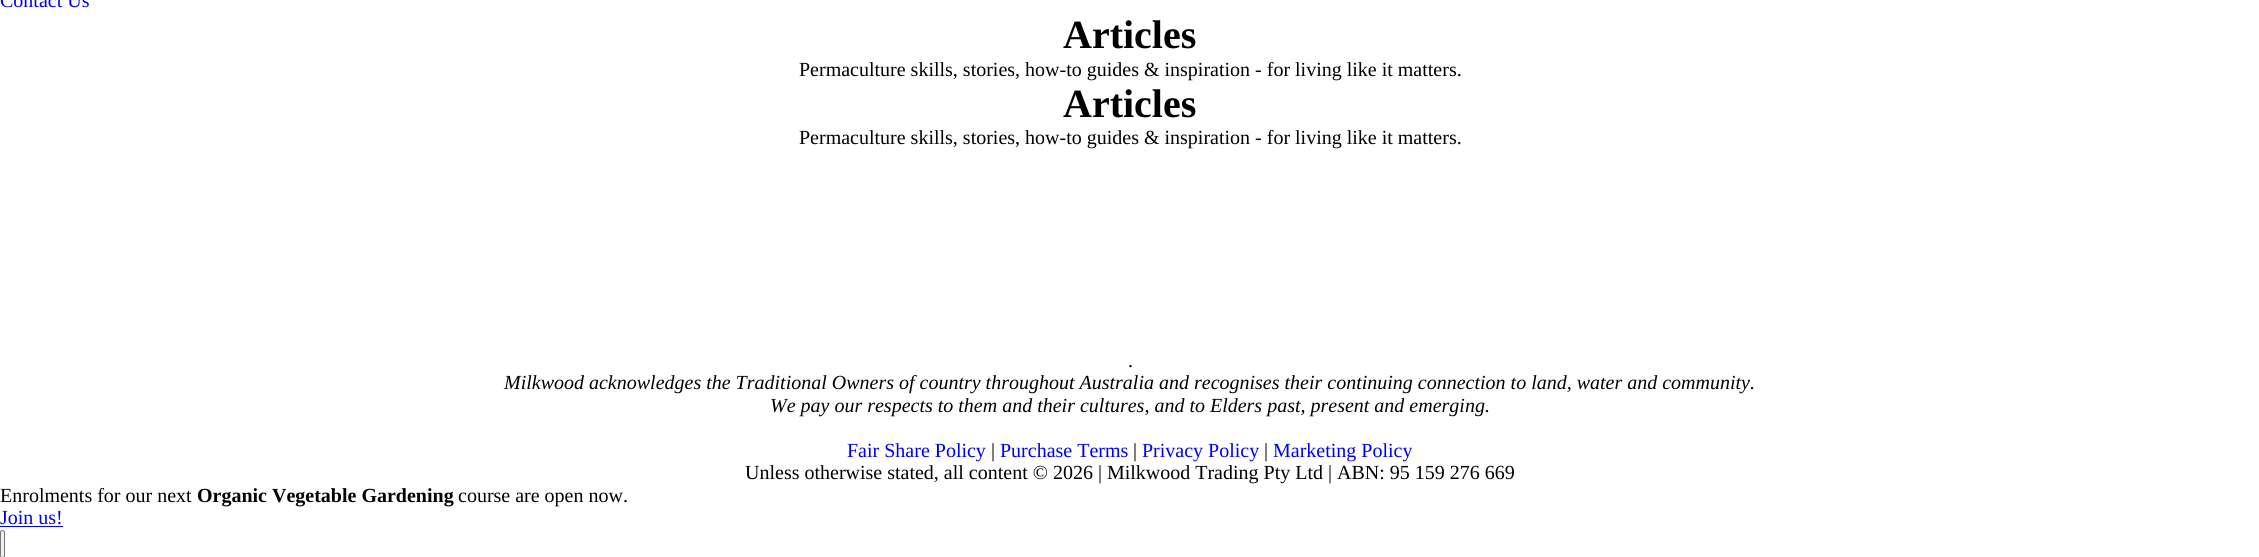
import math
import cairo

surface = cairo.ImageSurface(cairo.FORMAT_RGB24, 2259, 557)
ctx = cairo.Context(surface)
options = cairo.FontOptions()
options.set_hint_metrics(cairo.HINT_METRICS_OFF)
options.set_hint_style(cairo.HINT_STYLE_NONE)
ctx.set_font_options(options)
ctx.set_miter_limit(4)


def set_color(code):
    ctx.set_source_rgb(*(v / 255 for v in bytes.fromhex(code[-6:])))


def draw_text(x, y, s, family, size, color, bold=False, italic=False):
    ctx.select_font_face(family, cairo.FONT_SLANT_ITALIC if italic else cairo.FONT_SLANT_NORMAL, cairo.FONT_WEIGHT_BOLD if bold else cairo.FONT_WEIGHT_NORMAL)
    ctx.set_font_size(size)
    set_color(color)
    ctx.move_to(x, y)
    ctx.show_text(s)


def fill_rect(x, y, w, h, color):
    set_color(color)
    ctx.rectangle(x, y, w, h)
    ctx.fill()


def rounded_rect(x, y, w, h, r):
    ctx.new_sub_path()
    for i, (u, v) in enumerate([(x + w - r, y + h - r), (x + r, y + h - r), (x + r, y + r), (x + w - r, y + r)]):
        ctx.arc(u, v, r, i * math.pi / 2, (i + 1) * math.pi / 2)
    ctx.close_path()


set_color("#ffffff")
ctx.paint()
draw_text(0, 7, "Contact Us", "Liberation Serif", 20, "#0000ee")
draw_text(1063, 48, "Articles", "Liberation Serif", 40, "#000000", bold=True)
draw_text(799, 76, "Permaculture skills, stories, how-to guides & inspiration - for living like it matters.", "Liberation Serif", 20, "#000000")
draw_text(1063, 117, "Articles", "Liberation Serif", 40, "#000000", bold=True)
draw_text(799, 144, "Permaculture skills, stories, how-to guides & inspiration - for living like it matters.", "Liberation Serif", 20, "#000000")
draw_text(1128, 367, ".", "Liberation Serif", 20, "#000000")
draw_text(504, 389, "Milkwood acknowledges the Traditional Owners of country throughout Australia and recognises their continuing connection to land, water and community.", "Liberation Serif", 20, "#000000", italic=True)
draw_text(770, 412, "We pay our respects to them and their cultures, and to Elders past, present and emerging.", "Liberation Serif", 20, "#000000", italic=True)
draw_text(847, 457, "Fair Share Policy", "Liberation Serif", 20, "#0000ee")
draw_text(991, 457, "|", "Liberation Serif", 20, "#000000")
draw_text(1000, 457, "Purchase Terms", "Liberation Serif", 20, "#0000ee")
draw_text(1133, 457, "|", "Liberation Serif", 20, "#000000")
draw_text(1142, 457, "Privacy Policy", "Liberation Serif", 20, "#0000ee")
draw_text(1264, 457, "|", "Liberation Serif", 20, "#000000")
draw_text(1273, 457, "Marketing Policy", "Liberation Serif", 20, "#0000ee")
draw_text(745, 479, "Unless otherwise stated, all content © 2026 | Milkwood Trading Pty Ltd | ABN: 95 159 276 669", "Liberation Serif", 20, "#000000")
draw_text(0, 502, "Enrolments for our next", "Liberation Serif", 20, "#000000")
draw_text(197, 502, "Organic Vegetable Gardening", "Liberation Serif", 20, "#000000", bold=True)
draw_text(458, 502, "course are open now.", "Liberation Serif", 20, "#000000")
draw_text(0, 524, "Join us!", "Liberation Serif", 20, "#0000ee")
fill_rect(0, 526, 63, 1, "#0000ee")
set_color("#efefef")
rounded_rect(0.5, 530.5, 4, 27, 2)
ctx.fill_preserve()
set_color("#767676")
ctx.set_line_width(1)
ctx.stroke()
surface.write_to_png("output.png")
